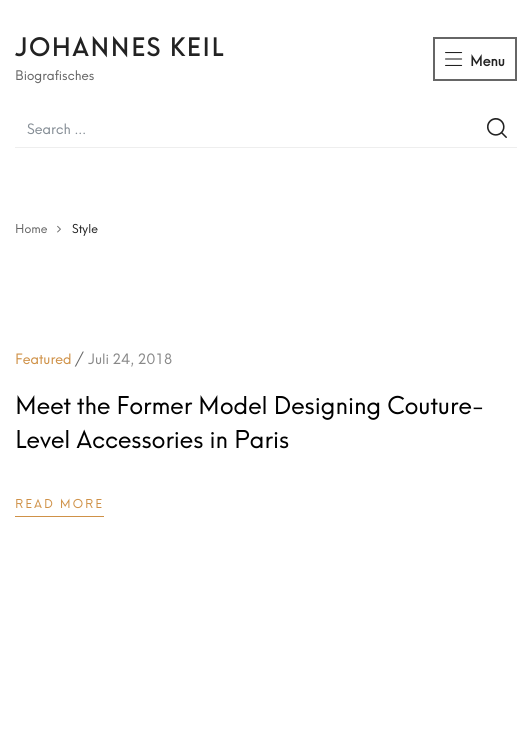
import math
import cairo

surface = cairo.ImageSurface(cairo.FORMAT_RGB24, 532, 739)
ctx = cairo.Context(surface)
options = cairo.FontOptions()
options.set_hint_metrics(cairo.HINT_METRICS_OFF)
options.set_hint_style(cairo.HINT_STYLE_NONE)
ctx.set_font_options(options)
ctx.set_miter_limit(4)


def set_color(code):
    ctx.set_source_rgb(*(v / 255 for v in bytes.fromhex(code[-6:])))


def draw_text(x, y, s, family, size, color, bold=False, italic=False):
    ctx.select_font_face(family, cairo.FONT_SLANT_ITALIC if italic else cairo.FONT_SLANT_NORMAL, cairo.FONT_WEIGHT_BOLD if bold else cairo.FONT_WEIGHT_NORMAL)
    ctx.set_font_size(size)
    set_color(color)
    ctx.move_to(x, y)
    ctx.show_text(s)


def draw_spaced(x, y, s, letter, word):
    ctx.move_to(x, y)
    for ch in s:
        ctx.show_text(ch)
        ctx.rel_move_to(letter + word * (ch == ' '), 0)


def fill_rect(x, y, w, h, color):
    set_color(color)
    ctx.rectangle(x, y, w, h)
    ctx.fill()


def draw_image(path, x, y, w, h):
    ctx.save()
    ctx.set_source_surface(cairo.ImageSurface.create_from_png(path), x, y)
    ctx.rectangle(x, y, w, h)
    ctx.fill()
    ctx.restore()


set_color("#ffffff")
ctx.paint()
ctx.select_font_face("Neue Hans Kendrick", cairo.FONT_SLANT_NORMAL, cairo.FONT_WEIGHT_BOLD)
ctx.set_font_size(24)
set_color("#222222")
draw_spaced(15, 56, "JOHANNES KEIL", 1.9, 0)
draw_text(15, 80, "Biografisches", "Neue Hans Kendrick", 13, "#666666")
ctx.rectangle(434, 38, 82, 42)
ctx.stroke()
draw_image("assets/img1.png", 445, 52, 18, 14)
draw_text(470, 66, "Menu", "Neue Hans Kendrick", 14, "#222222", bold=True)
fill_rect(15, 147, 502, 1, "#eeeeee")
draw_text(27, 134, "Search …", "Neue Hans Kendrick", 14, "#868e96")
draw_image("assets/img2.png", 487, 118, 20, 20)
draw_text(15, 233, "Home", "Neue Hans Kendrick", 12, "#666666")
draw_image("assets/img3.png", 57, 225, 4, 8)
draw_text(72, 233, "Style", "Neue Hans Kendrick", 12, "#222222")
draw_text(15, 364, "Featured", "Neue Hans Kendrick", 14, "#cf9147")
draw_text(75, 364, "/", "Neue Hans Kendrick", 15, "#666666")
draw_text(88, 364, "Juli 24, 2018", "Neue Hans Kendrick", 14, "#888888")
draw_text(15, 414, "Meet the Former Model Designing Couture-", "Neue Hans Kendrick", 24, "#000000")
draw_text(15, 448, "Level Accessories in Paris", "Neue Hans Kendrick", 24, "#000000")
ctx.set_font_size(12)
set_color("#cf9147")
draw_spaced(15, 508, "READ MORE", 2, 0)
fill_rect(15, 516, 89, 1, "#cf9147")
surface.write_to_png("output.png")
